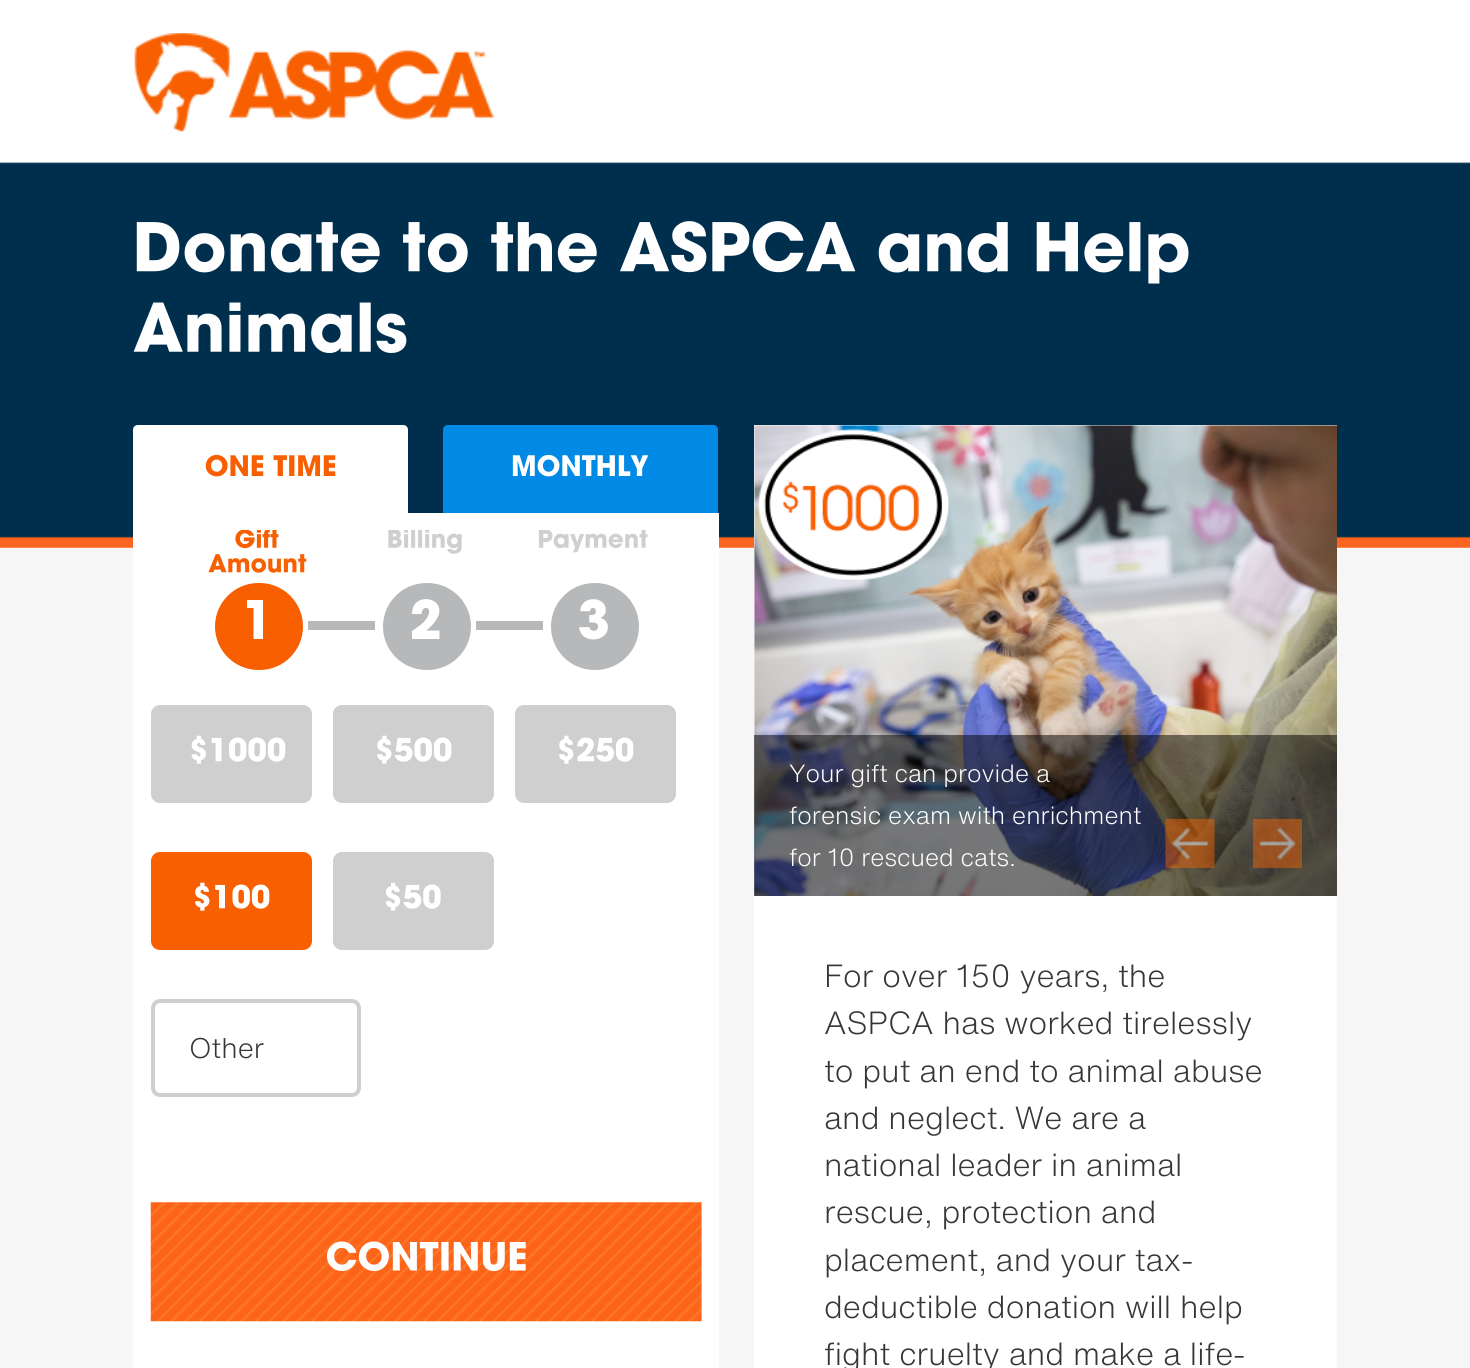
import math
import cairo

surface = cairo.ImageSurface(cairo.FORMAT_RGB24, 1470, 1368)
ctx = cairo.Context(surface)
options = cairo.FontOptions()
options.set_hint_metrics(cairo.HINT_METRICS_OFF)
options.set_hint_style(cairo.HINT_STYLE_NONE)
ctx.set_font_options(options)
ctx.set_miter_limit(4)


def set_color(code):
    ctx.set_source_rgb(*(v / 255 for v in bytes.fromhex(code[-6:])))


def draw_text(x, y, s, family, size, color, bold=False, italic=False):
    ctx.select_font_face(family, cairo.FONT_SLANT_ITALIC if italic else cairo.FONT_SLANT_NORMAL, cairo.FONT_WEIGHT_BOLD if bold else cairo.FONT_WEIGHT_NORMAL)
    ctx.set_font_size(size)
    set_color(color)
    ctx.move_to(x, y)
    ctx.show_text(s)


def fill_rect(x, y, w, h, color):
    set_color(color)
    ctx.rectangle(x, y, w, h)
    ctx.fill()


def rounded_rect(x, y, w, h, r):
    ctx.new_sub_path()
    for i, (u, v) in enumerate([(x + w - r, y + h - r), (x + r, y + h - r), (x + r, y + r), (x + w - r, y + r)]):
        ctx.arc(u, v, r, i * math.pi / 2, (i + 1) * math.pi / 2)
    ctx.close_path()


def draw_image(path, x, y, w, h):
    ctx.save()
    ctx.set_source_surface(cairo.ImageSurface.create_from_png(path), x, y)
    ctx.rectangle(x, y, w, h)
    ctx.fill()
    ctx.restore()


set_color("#f6f6f6")
ctx.paint()
draw_image("assets/img1.png", 0, 0, 1470, 548)
draw_image("assets/img2.png", 134, 33, 360, 99)
draw_image("assets/img3.png", 136, 221, 1053, 63)
draw_image("assets/img4.png", 133, 302, 274, 51)
set_color("#ffffff")
ctx.new_path()
ctx.move_to(138, 425)
ctx.line_to(403, 425)
ctx.curve_to(406, 425, 408, 427, 408, 430)
ctx.line_to(408, 513)
ctx.line_to(133, 513)
ctx.line_to(133, 430)
ctx.curve_to(133, 427, 135, 425, 138, 425)
ctx.close_path()
ctx.fill()
draw_image("assets/img5.png", 205, 454, 131, 23)
set_color("#0089e5")
ctx.new_path()
ctx.move_to(448, 425)
ctx.line_to(713, 425)
ctx.curve_to(716, 425, 718, 427, 718, 430)
ctx.line_to(718, 513)
ctx.line_to(443, 513)
ctx.line_to(443, 430)
ctx.curve_to(443, 427, 445, 425, 448, 425)
ctx.close_path()
ctx.fill()
draw_image("assets/img6.png", 512, 454, 137, 23)
fill_rect(133, 513, 586, 855, "#ffffff")
draw_image("assets/img7.png", 235, 530, 44, 19)
draw_image("assets/img8.png", 208, 554, 99, 19)
set_color("#f75f00")
rounded_rect(215, 583, 88, 87, 43.5)
ctx.fill()
set_color("#ffffff")
ctx.new_path()
ctx.move_to(263, 639)
ctx.line_to(253.5, 639)
ctx.line_to(253.5, 608)
ctx.line_to(247, 608)
ctx.line_to(247, 600)
ctx.line_to(263, 600)
ctx.close_path()
ctx.fill()
fill_rect(308, 621, 67, 9, "#b6b8b9")
draw_image("assets/img9.png", 388, 530, 74, 24)
rounded_rect(383, 583, 88, 87, 43.5)
ctx.fill()
set_color("#ffffff")
ctx.new_path()
ctx.move_to(439.5, 639)
ctx.line_to(412, 639)
ctx.line_to(412, 631)
ctx.curve_to(418, 627, 424, 623, 427.5, 617)
ctx.curve_to(433.5, 607, 422, 604, 421.5, 614)
ctx.line_to(412, 614)
ctx.curve_to(412, 590, 449, 597.5, 437, 618.5)
ctx.curve_to(434.5, 623, 430.5, 627, 426.5, 630.5)
ctx.line_to(439.5, 630.5)
ctx.close_path()
ctx.fill()
fill_rect(476, 621, 67, 9, "#b6b8b9")
draw_image("assets/img10.png", 538, 530, 110, 23)
rounded_rect(551, 583, 88, 87, 43.5)
ctx.fill()
draw_image("assets/img11.png", 579, 599, 29, 41)
set_color("#cfcfcf")
rounded_rect(151, 705, 161, 98, 9)
ctx.fill()
draw_image("assets/img12.png", 191, 735, 95, 29)
rounded_rect(333, 705, 161, 98, 9)
ctx.fill()
draw_image("assets/img13.png", 377, 735, 75, 29)
rounded_rect(515, 705, 161, 98, 9)
ctx.fill()
draw_image("assets/img14.png", 559, 735, 75, 29)
set_color("#f75f00")
rounded_rect(151, 852, 161, 98, 9)
ctx.fill()
draw_image("assets/img15.png", 195, 882, 75, 29)
set_color("#cfcfcf")
rounded_rect(333, 852, 161, 98, 9)
ctx.fill()
draw_image("assets/img16.png", 385, 882, 56, 29)
rounded_rect(153, 1001, 206, 94, 7)
ctx.set_line_width(4)
ctx.stroke()
draw_text(189, 1058, "Other", "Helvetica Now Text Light", 28, "#363636")
draw_image("assets/img17.png", 150, 1202, 552, 120)
draw_image("assets/img18.png", 326, 1241, 200, 30)
fill_rect(754, 425, 583, 943, "#ffffff")
draw_image("assets/img19.png", 754, 425, 583, 471)
ctx.set_source_rgba(0, 0, 0, 0.5)
ctx.rectangle(754, 735, 583, 161)
ctx.fill()
draw_text(789, 782, "Your gift can provide a", "Helvetica Now Text Light", 24.5, "#ffffff")
draw_text(789, 824, "forensic exam with enrichment", "Helvetica Now Text Light", 24.5, "#ffffff")
draw_text(789, 866, "for 10 rescued cats.", "Helvetica Now Text Light", 24.5, "#ffffff")
draw_image("assets/img20.png", 1165, 819, 50, 49)
draw_image("assets/img21.png", 1253, 819, 49, 49)
draw_text(824, 987, "For over 150 years, the", "Helvetica Now Text Light", 31.5, "#363636")
draw_text(824, 1034, "ASPCA has worked tirelessly", "Helvetica Now Text Light", 31.5, "#363636")
draw_text(824, 1082, "to put an end to animal abuse", "Helvetica Now Text Light", 31.5, "#363636")
draw_text(824, 1129, "and neglect. We are a", "Helvetica Now Text Light", 31.5, "#363636")
draw_text(824, 1176, "national leader in animal", "Helvetica Now Text Light", 31.5, "#363636")
draw_text(824, 1223, "rescue, protection and", "Helvetica Now Text Light", 31.5, "#363636")
draw_text(824, 1271, "placement, and your tax-", "Helvetica Now Text Light", 31.5, "#363636")
draw_text(824, 1318, "deductible donation will help", "Helvetica Now Text Light", 31.5, "#363636")
draw_text(824, 1365, "fight cruelty and make a life-", "Helvetica Now Text Light", 31.5, "#363636")
surface.write_to_png("output.png")
